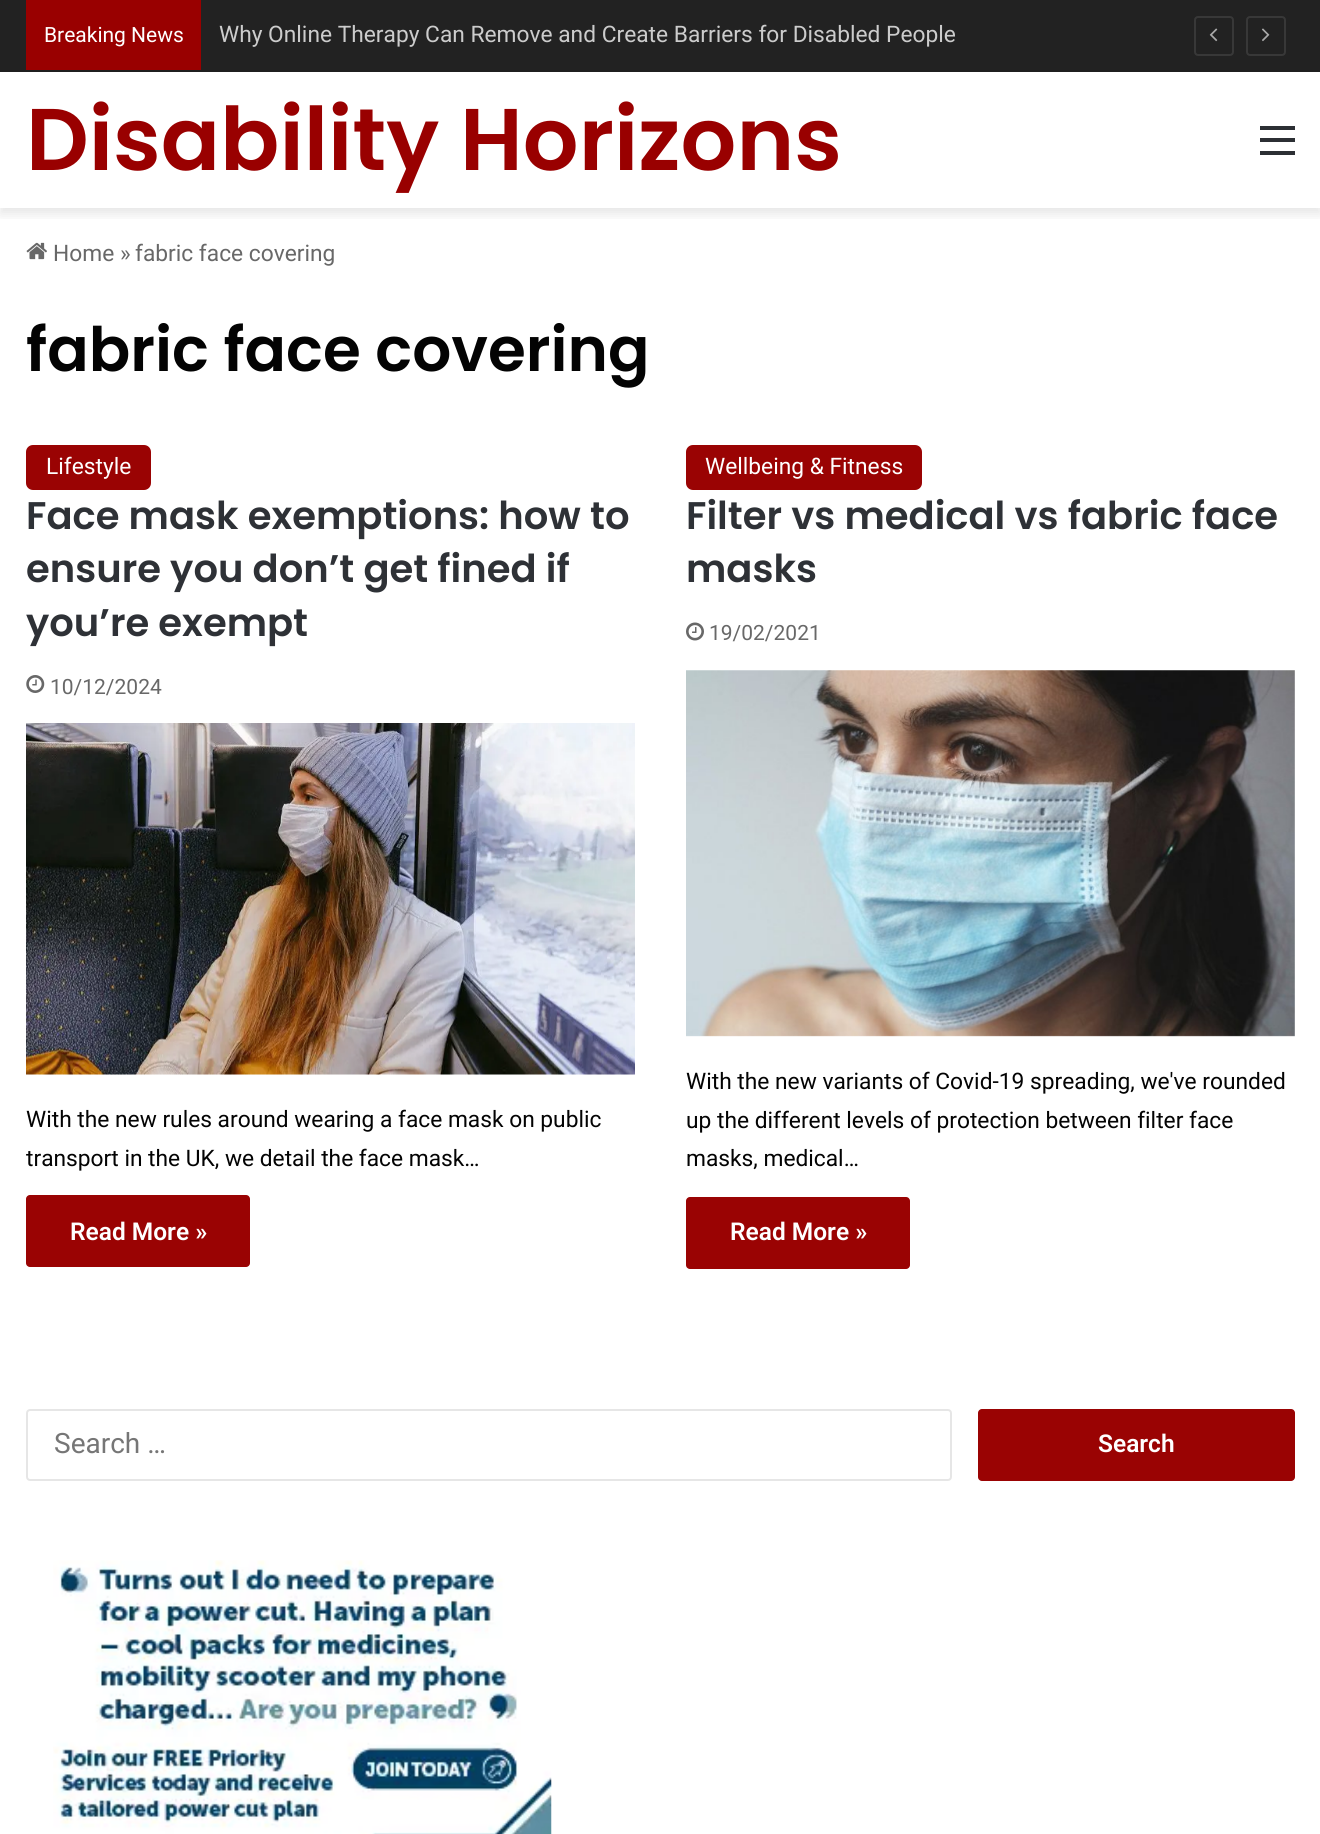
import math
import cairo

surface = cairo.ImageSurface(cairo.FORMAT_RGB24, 1320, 1834)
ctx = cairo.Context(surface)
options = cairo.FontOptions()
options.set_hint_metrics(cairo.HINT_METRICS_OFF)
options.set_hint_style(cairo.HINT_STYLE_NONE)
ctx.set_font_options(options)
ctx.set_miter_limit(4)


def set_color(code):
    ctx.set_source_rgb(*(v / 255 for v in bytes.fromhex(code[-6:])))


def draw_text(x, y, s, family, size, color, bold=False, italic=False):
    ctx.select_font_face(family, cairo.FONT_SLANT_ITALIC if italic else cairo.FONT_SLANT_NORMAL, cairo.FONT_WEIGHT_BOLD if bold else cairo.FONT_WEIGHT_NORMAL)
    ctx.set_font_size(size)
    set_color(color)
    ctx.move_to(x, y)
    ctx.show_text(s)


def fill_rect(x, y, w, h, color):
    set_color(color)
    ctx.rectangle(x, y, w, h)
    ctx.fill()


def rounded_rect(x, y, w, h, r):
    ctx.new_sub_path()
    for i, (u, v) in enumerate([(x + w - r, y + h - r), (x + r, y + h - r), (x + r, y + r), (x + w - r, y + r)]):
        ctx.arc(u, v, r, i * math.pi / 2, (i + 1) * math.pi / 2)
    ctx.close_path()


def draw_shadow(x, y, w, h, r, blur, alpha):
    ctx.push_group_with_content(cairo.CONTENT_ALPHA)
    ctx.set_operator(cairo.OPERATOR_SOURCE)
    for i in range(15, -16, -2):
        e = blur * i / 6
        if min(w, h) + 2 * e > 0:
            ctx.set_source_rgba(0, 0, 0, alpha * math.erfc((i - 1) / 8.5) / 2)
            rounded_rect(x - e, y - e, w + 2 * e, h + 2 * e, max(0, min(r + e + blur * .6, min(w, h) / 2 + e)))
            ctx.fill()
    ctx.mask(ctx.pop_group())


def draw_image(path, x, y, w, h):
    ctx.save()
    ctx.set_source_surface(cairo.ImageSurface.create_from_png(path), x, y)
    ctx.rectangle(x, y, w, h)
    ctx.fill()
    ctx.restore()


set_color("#ffffff")
ctx.paint()
ctx.save()
ctx.rectangle(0, 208, 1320, 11)
ctx.clip()
set_color("#000000")
draw_shadow(0, 77, 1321, 137, 0, 6, 0.1)
ctx.restore()
fill_rect(0, 0, 1320, 70, "#222222")
fill_rect(0, 70, 1320, 2, "#1f1f1f")
fill_rect(26, 0, 175, 70, "#990000")
draw_text(44, 42, "Breaking News", "Roboto", 21, "#ffffff")
draw_text(219, 42, "Why Online Therapy Can Remove and Create Barriers for Disabled People", "Roboto", 22.75, "#cccccc")
rounded_rect(1195, 17, 38, 38, 3)
set_color("#383838")
ctx.stroke()
draw_image("assets/img1.png", 1209, 28, 9, 14)
rounded_rect(1247, 17, 38, 38, 3)
ctx.stroke()
draw_image("assets/img2.png", 1262, 28, 8, 14)
draw_text(26, 170, "Disability Horizons", "Poppins SemiBold", 87.5, "#990000")
fill_rect(1260, 138, 35, 4, "#2c2f34")
fill_rect(1260, 126, 35, 4, "#2c2f34")
fill_rect(1260, 151, 35, 4, "#2c2f34")
draw_image("assets/img3.png", 26, 242, 21, 18)
draw_text(53, 261, "Home", "Roboto", 22.75, "#686868")
draw_text(120, 261, "»", "Roboto", 22.75, "#686868")
draw_text(135, 261, "fabric face covering", "Roboto", 22.75, "#686868")
draw_text(26, 371, "fabric face covering", "Poppins SemiBold", 61.25, "#030303")
set_color("#9a0303")
rounded_rect(26, 445, 125, 45, 7)
ctx.fill()
draw_text(46, 474, "Lifestyle", "Roboto", 22.75, "#ffffff")
draw_text(26, 529, "Face mask exemptions: how to", "Poppins SemiBold", 38.5, "#2e3136")
draw_text(26, 582, "ensure you don’t get fined if", "Poppins SemiBold", 38.5, "#2e3136")
draw_text(26, 636, "you’re exempt", "Poppins SemiBold", 38.5, "#2e3136")
draw_image("assets/img4.png", 26, 675, 19, 18)
draw_text(50, 694, "10/12/2024", "Roboto", 21, "#686868")
draw_image("assets/img5.png", 26, 723, 609, 352)
draw_text(26, 1127, "With the new rules around wearing a face mask on public", "Roboto", 22.75, "#030303")
draw_text(26, 1166, "transport in the UK, we detail the face mask…", "Roboto", 22.75, "#030303")
set_color("#9a0303")
rounded_rect(26, 1195, 224, 72, 4)
ctx.fill()
draw_text(70, 1240, "Read More »", "Roboto SemiBold", 24.5, "#ffffff")
set_color("#9a0303")
rounded_rect(686, 445, 236, 45, 7)
ctx.fill()
draw_text(705, 474, "Wellbeing & Fitness", "Roboto", 22.75, "#ffffff")
draw_text(686, 529, "Filter vs medical vs fabric face", "Poppins SemiBold", 38.5, "#2e3136")
draw_text(686, 582, "masks", "Poppins SemiBold", 38.5, "#2e3136")
draw_image("assets/img6.png", 686, 622, 18, 19)
draw_text(709, 640, "19/02/2021", "Roboto", 21, "#686868")
draw_image("assets/img7.png", 686, 670, 609, 367)
draw_text(686, 1089, "With the new variants of Covid-19 spreading, we've rounded", "Roboto", 22.75, "#030303")
draw_text(686, 1128, "up the different levels of protection between filter face", "Roboto", 22.75, "#030303")
draw_text(686, 1166, "masks, medical…", "Roboto", 22.75, "#030303")
set_color("#9a0303")
rounded_rect(686, 1197, 224, 72, 4)
ctx.fill()
draw_text(730, 1240, "Read More »", "Roboto SemiBold", 24.5, "#ffffff")
rounded_rect(27, 1410, 924, 70, 3)
set_color("#e6e6e6")
ctx.stroke()
draw_text(54, 1453, "Search …", "Roboto", 28, "#767676")
set_color("#9a0303")
rounded_rect(978, 1409, 317, 72, 4)
ctx.fill()
draw_text(1098, 1452, "Search", "Roboto SemiBold", 24.5, "#ffffff")
draw_image("assets/img8.png", 53, 1560, 499, 274)
surface.write_to_png("output.png")
